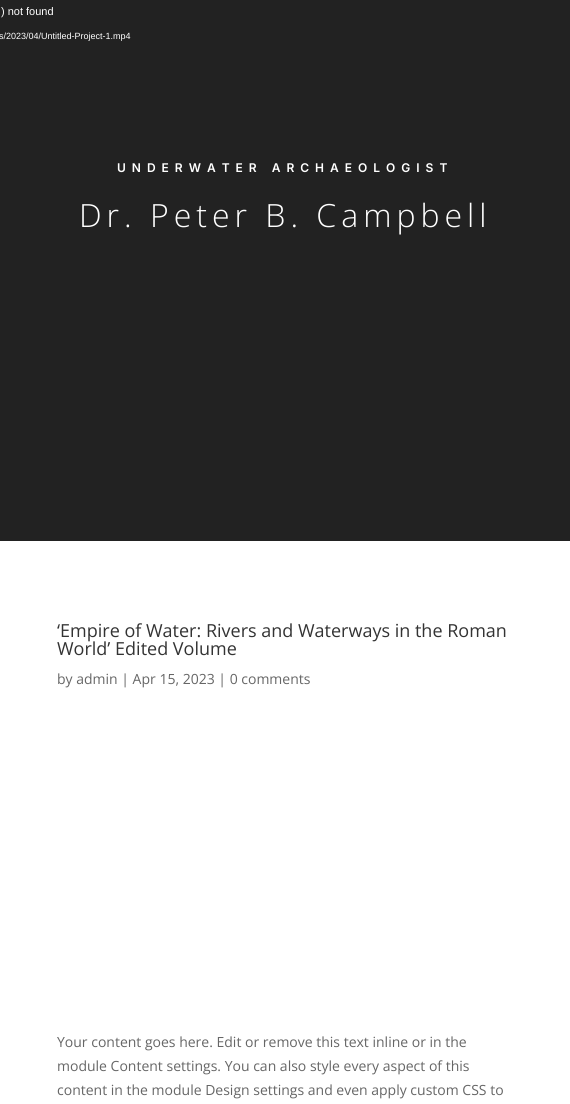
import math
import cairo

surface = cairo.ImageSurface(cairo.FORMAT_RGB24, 570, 1104)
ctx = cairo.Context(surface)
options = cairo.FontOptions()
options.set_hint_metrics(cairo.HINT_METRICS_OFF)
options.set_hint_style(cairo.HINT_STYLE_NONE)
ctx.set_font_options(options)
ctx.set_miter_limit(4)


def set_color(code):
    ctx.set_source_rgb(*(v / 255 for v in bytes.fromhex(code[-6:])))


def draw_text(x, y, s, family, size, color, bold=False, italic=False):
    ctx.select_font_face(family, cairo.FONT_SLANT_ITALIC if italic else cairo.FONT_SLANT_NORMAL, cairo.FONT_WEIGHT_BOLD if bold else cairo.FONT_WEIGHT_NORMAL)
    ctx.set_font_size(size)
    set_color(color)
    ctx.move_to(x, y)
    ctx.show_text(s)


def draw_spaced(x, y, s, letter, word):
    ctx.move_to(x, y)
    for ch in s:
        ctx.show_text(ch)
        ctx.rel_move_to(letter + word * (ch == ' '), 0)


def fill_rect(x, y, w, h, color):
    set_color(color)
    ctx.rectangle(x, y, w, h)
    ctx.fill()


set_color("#ffffff")
ctx.paint()
fill_rect(0, 0, 570, 541, "#222222")
draw_text(1, 15, ") not found", "Liberation Sans", 11, "#ffffff")
draw_text(-1, 39, "s/2023/04/Untitled-Project-1.mp4", "Liberation Sans", 9, "#ffffff")
ctx.select_font_face("Inter SemiBold")
ctx.set_font_size(12)
draw_spaced(117, 172, "UNDERWATER ARCHAEOLOGIST", 6, 0)
ctx.select_font_face("Open Sans Light")
ctx.set_font_size(32)
draw_spaced(79, 227, "Dr. Peter B. Campbell", 5, 0)
draw_text(57, 637, "‘Empire of Water: Rivers and Waterways in the Roman", "Open Sans", 18, "#333333")
draw_text(57, 655, "World’ Edited Volume", "Open Sans", 18, "#333333")
draw_text(57, 684, "by admin | Apr 15, 2023 | 0 comments", "Open Sans", 14, "#666666")
draw_text(57, 1047, "Your content goes here. Edit or remove this text inline or in the", "Open Sans", 14, "#666666")
draw_text(57, 1071, "module Content settings. You can also style every aspect of this", "Open Sans", 14, "#666666")
draw_text(57, 1095, "content in the module Design settings and even apply custom CSS to", "Open Sans", 14, "#666666")
surface.write_to_png("output.png")
